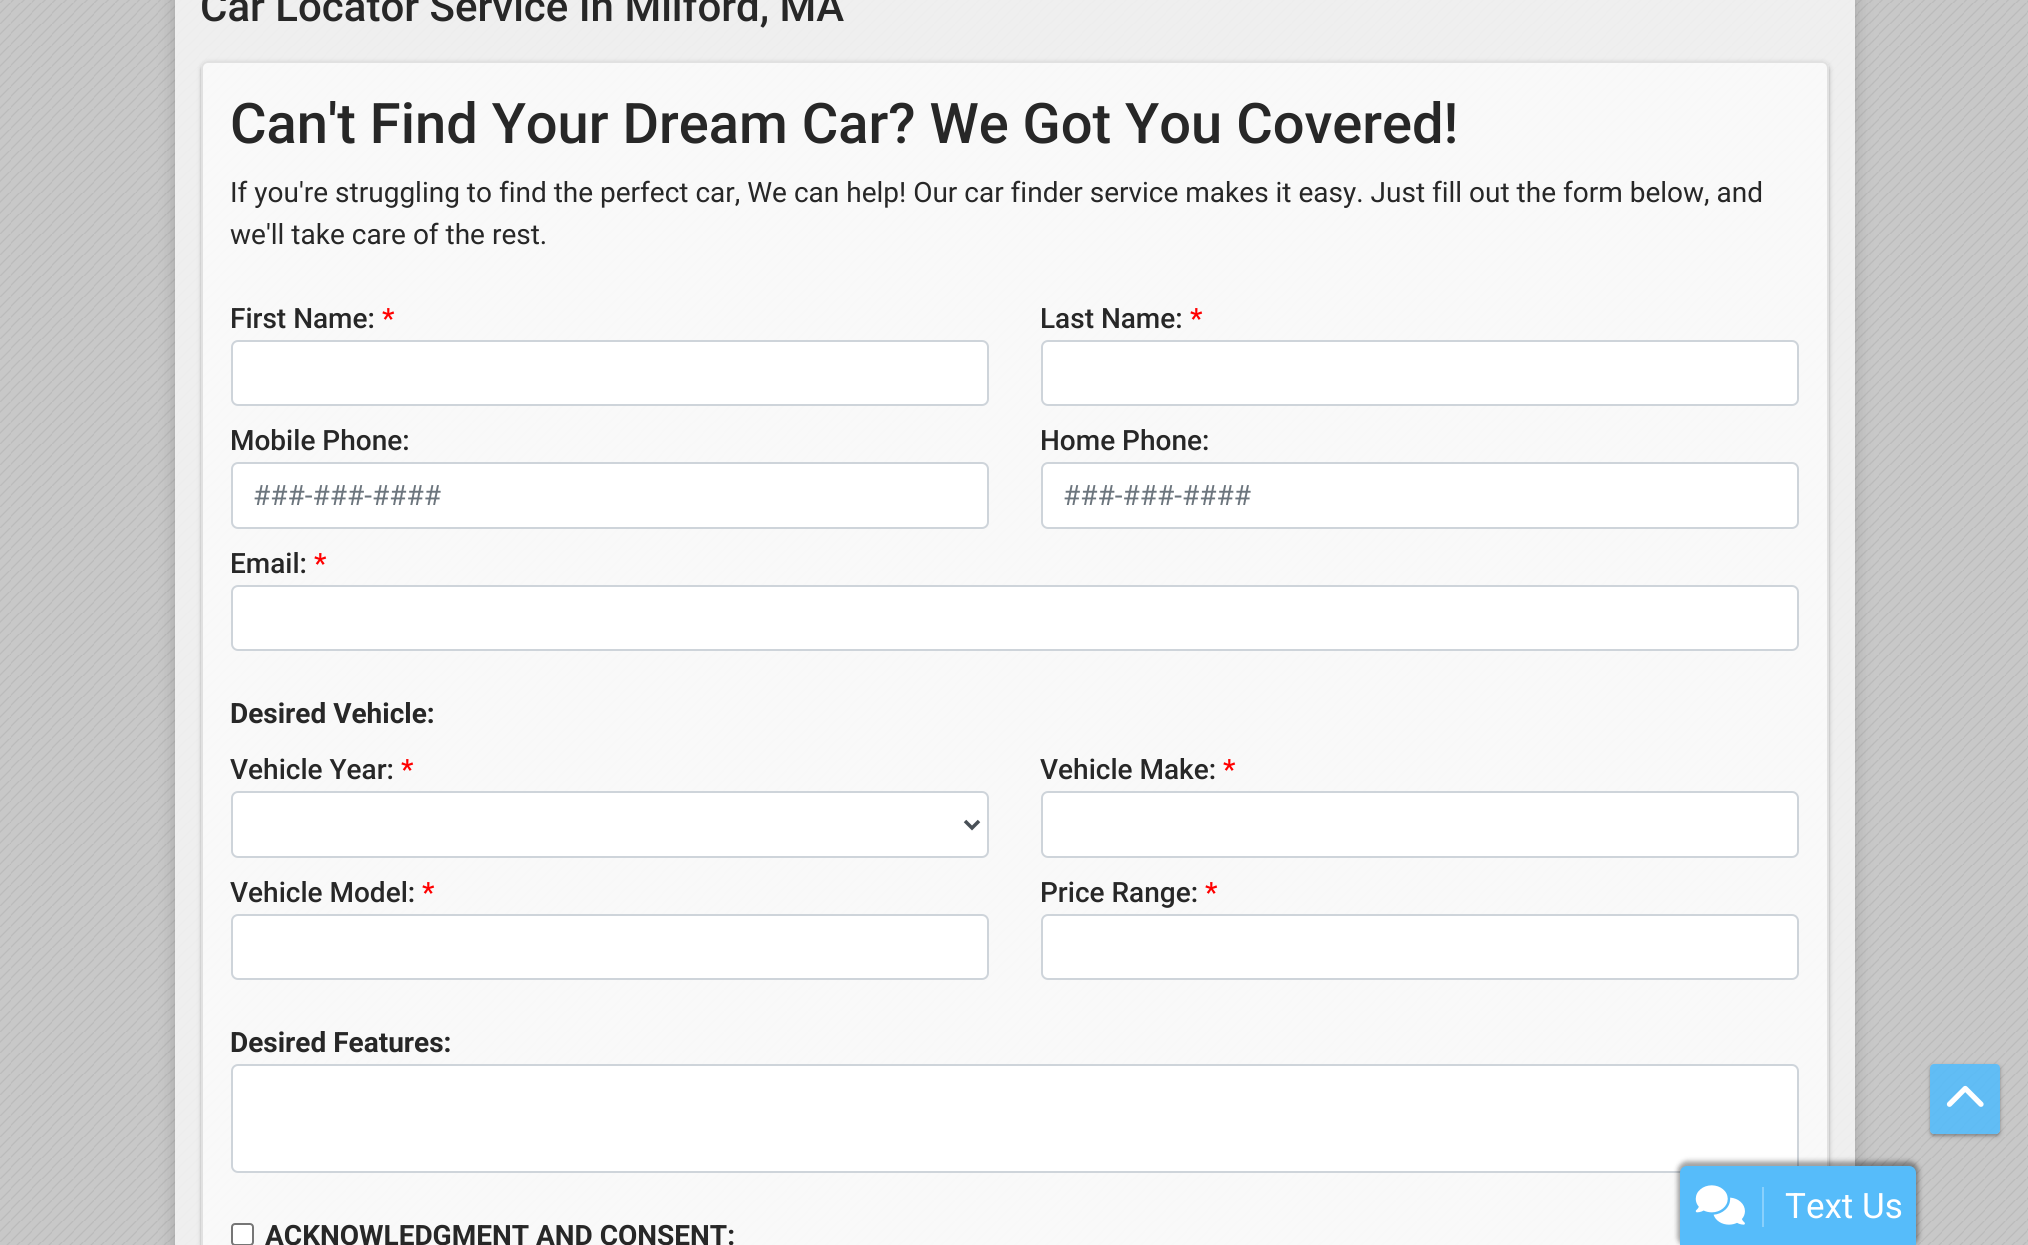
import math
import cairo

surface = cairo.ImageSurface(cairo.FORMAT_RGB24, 2028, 1245)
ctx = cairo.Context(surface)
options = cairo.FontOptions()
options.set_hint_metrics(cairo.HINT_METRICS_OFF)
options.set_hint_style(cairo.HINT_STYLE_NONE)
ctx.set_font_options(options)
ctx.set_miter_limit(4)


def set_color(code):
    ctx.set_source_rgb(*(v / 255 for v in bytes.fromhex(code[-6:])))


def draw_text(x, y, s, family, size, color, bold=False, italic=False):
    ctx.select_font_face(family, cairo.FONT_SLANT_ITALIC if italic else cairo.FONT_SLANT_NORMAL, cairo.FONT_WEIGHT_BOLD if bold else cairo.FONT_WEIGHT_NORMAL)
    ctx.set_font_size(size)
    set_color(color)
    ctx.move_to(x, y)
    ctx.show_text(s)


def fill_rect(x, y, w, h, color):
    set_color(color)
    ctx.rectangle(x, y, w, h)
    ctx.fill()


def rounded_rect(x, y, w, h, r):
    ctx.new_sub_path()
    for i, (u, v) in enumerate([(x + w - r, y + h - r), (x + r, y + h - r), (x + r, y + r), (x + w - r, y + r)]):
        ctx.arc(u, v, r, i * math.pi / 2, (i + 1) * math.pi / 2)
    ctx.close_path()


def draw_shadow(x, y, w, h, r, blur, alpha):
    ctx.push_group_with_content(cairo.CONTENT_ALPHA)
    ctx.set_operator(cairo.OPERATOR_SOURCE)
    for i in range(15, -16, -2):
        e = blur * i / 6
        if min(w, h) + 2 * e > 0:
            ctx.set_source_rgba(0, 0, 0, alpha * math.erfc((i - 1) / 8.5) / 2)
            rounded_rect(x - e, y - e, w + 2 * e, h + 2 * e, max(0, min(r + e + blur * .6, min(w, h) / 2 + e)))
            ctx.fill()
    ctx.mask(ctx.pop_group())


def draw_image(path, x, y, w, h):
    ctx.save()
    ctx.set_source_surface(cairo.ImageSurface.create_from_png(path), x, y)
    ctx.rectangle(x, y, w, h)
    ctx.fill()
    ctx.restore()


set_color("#c8c8c8")
ctx.paint()
draw_image("assets/img1.png", 0, 0, 2028, 1245)
ctx.save()
ctx.set_fill_rule(cairo.FILL_RULE_EVEN_ODD)
ctx.new_path()
ctx.move_to(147, 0)
ctx.line_to(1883, 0)
ctx.line_to(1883, 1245)
ctx.line_to(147, 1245)
ctx.close_path()
ctx.move_to(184, -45)
ctx.line_to(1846, -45)
ctx.curve_to(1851, -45, 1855, -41, 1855, -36)
ctx.line_to(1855, 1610)
ctx.curve_to(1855, 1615, 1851, 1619, 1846, 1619)
ctx.line_to(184, 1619)
ctx.curve_to(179, 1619, 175, 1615, 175, 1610)
ctx.line_to(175, -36)
ctx.curve_to(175, -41, 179, -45, 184, -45)
ctx.close_path()
ctx.clip()
set_color("#000000")
draw_shadow(175, -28, 1680, 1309, 9, 9, 0.2)
ctx.restore()
ctx.set_source_rgba(0.953, 0.953, 0.953, 0.9)
ctx.rectangle(175, 0, 1680, 1245)
ctx.fill()
draw_text(200, 21, "Car Locator Service In Milford, MA", "Roboto Medium", 42, "#272727")
ctx.save()
ctx.set_fill_rule(cairo.FILL_RULE_EVEN_ODD)
ctx.new_path()
ctx.move_to(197, 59)
ctx.line_to(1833, 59)
ctx.line_to(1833, 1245)
ctx.line_to(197, 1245)
ctx.close_path()
ctx.move_to(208, 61)
ctx.line_to(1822, 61)
ctx.curve_to(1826, 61, 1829, 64, 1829, 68)
ctx.line_to(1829, 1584)
ctx.curve_to(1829, 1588, 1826, 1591, 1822, 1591)
ctx.line_to(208, 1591)
ctx.curve_to(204, 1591, 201, 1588, 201, 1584)
ctx.line_to(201, 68)
ctx.curve_to(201, 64, 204, 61, 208, 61)
ctx.close_path()
ctx.clip()
set_color("#000000")
draw_shadow(201, 63, 1628, 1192, 7, 1, 0.2)
ctx.restore()
ctx.save()
ctx.set_fill_rule(cairo.FILL_RULE_EVEN_ODD)
ctx.new_path()
ctx.move_to(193, 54)
ctx.line_to(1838, 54)
ctx.line_to(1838, 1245)
ctx.line_to(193, 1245)
ctx.close_path()
ctx.move_to(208, 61)
ctx.line_to(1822, 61)
ctx.curve_to(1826, 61, 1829, 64, 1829, 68)
ctx.line_to(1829, 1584)
ctx.curve_to(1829, 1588, 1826, 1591, 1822, 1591)
ctx.line_to(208, 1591)
ctx.curve_to(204, 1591, 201, 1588, 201, 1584)
ctx.line_to(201, 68)
ctx.curve_to(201, 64, 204, 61, 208, 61)
ctx.close_path()
ctx.clip()
set_color("#000000")
draw_shadow(200, 61, 1631, 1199, 9, 2, 0.1)
ctx.restore()
ctx.set_source_rgba(1, 1, 1, 0.6)
rounded_rect(202, 62, 1626, 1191, 6)
ctx.fill_preserve()
set_color("#e1e1e1")
ctx.stroke()
draw_text(230, 143, "Can't Find Your Dream Car? We Got You Covered!", "Roboto Medium", 56, "#272727")
draw_text(230, 202, "If you're struggling to find the perfect car, We can help! Our car finder service makes it easy. Just fill out the form below, and", "Roboto", 28, "#272727")
draw_text(230, 244, "we'll take care of the rest.", "Roboto", 28, "#272727")
draw_text(230, 328, "First Name:", "Roboto Medium", 28, "#272727")
draw_text(382, 328, "*", "Roboto Medium", 28, "#ff0000")
set_color("#ffffff")
rounded_rect(232, 341, 756, 64, 6)
ctx.fill_preserve()
set_color("#ced4da")
ctx.stroke()
draw_text(1040, 328, "Last Name:", "Roboto Medium", 28, "#272727")
draw_text(1190, 328, "*", "Roboto Medium", 28, "#ff0000")
set_color("#ffffff")
rounded_rect(1042, 341, 756, 64, 6)
ctx.fill_preserve()
set_color("#ced4da")
ctx.stroke()
draw_text(230, 450, "Mobile Phone:", "Roboto Medium", 28, "#272727")
set_color("#ffffff")
rounded_rect(232, 463, 756, 65, 6)
ctx.fill_preserve()
set_color("#ced4da")
ctx.stroke()
draw_text(253, 505, "###-###-####", "Roboto", 28, "#6c757d")
draw_text(1040, 450, "Home Phone:", "Roboto Medium", 28, "#272727")
set_color("#ffffff")
rounded_rect(1042, 463, 756, 65, 6)
ctx.fill_preserve()
set_color("#ced4da")
ctx.stroke()
draw_text(1063, 505, "###-###-####", "Roboto", 28, "#6c757d")
draw_text(230, 573, "Email:", "Roboto Medium", 28, "#272727")
draw_text(314, 573, "*", "Roboto Medium", 28, "#ff0000")
set_color("#ffffff")
rounded_rect(232, 586, 1566, 64, 6)
ctx.fill_preserve()
set_color("#ced4da")
ctx.stroke()
draw_text(230, 723, "Desired Vehicle:", "Roboto", 28, "#272727", bold=True)
draw_text(230, 779, "Vehicle Year:", "Roboto Medium", 28, "#272727")
draw_text(401, 779, "*", "Roboto Medium", 28, "#ff0000")
set_color("#ffffff")
rounded_rect(232, 792, 756, 65, 6)
ctx.fill_preserve()
set_color("#ced4da")
ctx.stroke()
ctx.new_path()
ctx.move_to(965, 821)
ctx.line_to(972, 828)
ctx.line_to(979, 821)
set_color("#495057")
ctx.set_line_width(3.5)
ctx.stroke()
draw_text(1040, 779, "Vehicle Make:", "Roboto Medium", 28, "#272727")
draw_text(1223, 779, "*", "Roboto Medium", 28, "#ff0000")
set_color("#ffffff")
rounded_rect(1042, 792, 756, 65, 6)
ctx.fill_preserve()
set_color("#ced4da")
ctx.set_line_width(2)
ctx.stroke()
draw_text(230, 902, "Vehicle Model:", "Roboto Medium", 28, "#272727")
draw_text(422, 902, "*", "Roboto Medium", 28, "#ff0000")
set_color("#ffffff")
rounded_rect(232, 915, 756, 64, 6)
ctx.fill_preserve()
set_color("#ced4da")
ctx.stroke()
draw_text(1040, 902, "Price Range:", "Roboto Medium", 28, "#272727")
draw_text(1205, 902, "*", "Roboto Medium", 28, "#ff0000")
set_color("#ffffff")
rounded_rect(1042, 915, 756, 64, 6)
ctx.fill_preserve()
set_color("#ced4da")
ctx.stroke()
draw_text(230, 1052, "Desired Features:", "Roboto", 28, "#272727", bold=True)
set_color("#ffffff")
rounded_rect(232, 1065, 1566, 107, 6)
ctx.fill_preserve()
set_color("#ced4da")
ctx.stroke()
set_color("#ffffff")
rounded_rect(232, 1224, 21, 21, 3)
ctx.fill_preserve()
set_color("#767676")
ctx.stroke()
draw_text(265, 1245, "ACKNOWLEDGMENT AND CONSENT:", "Roboto", 28, "#272727", bold=True)
ctx.save()
ctx.set_fill_rule(cairo.FILL_RULE_EVEN_ODD)
ctx.new_path()
ctx.move_to(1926, 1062)
ctx.line_to(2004, 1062)
ctx.line_to(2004, 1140)
ctx.line_to(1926, 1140)
ctx.close_path()
ctx.move_to(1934, 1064)
ctx.line_to(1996, 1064)
ctx.curve_to(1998, 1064, 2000, 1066, 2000, 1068)
ctx.line_to(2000, 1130)
ctx.curve_to(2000, 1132, 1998, 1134, 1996, 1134)
ctx.line_to(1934, 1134)
ctx.curve_to(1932, 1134, 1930, 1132, 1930, 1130)
ctx.line_to(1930, 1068)
ctx.curve_to(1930, 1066, 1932, 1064, 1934, 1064)
ctx.close_path()
ctx.clip()
set_color("#000000")
draw_shadow(1930, 1066, 70, 70, 4, 1, 0.2)
ctx.restore()
ctx.save()
ctx.set_fill_rule(cairo.FILL_RULE_EVEN_ODD)
ctx.new_path()
ctx.move_to(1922, 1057)
ctx.line_to(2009, 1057)
ctx.line_to(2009, 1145)
ctx.line_to(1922, 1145)
ctx.close_path()
ctx.move_to(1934, 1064)
ctx.line_to(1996, 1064)
ctx.curve_to(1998, 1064, 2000, 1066, 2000, 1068)
ctx.line_to(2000, 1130)
ctx.curve_to(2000, 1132, 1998, 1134, 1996, 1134)
ctx.line_to(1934, 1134)
ctx.curve_to(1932, 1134, 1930, 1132, 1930, 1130)
ctx.line_to(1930, 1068)
ctx.curve_to(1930, 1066, 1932, 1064, 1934, 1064)
ctx.close_path()
ctx.clip()
set_color("#000000")
draw_shadow(1929, 1064, 73, 74, 5, 2, 0.1)
ctx.restore()
ctx.set_source_rgba(0.337, 0.737, 0.98, 0.9)
rounded_rect(1930, 1064, 70, 70, 4)
ctx.fill()
draw_image("assets/img2.png", 1946, 1085, 38, 22)
set_color("#000000")
draw_shadow(1678, 1162, 240, 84, 9, 2, 0.25)
draw_shadow(1677, 1160, 243, 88, 11, 2.5, 0.15)
set_color("#56bcfa")
ctx.new_path()
ctx.move_to(1687, 1166)
ctx.line_to(1909, 1166)
ctx.curve_to(1913, 1166, 1916, 1169, 1916, 1173)
ctx.line_to(1916, 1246)
ctx.line_to(1680, 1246)
ctx.line_to(1680, 1173)
ctx.curve_to(1680, 1169, 1683, 1166, 1687, 1166)
ctx.close_path()
ctx.fill()
fill_rect(1762, 1187, 2, 40, "#89d0fc")
draw_image("assets/img3.png", 1695, 1185, 50, 40)
draw_text(1785, 1218, "Text Us", "Roboto", 35, "#ffffff")
surface.write_to_png("output.png")
